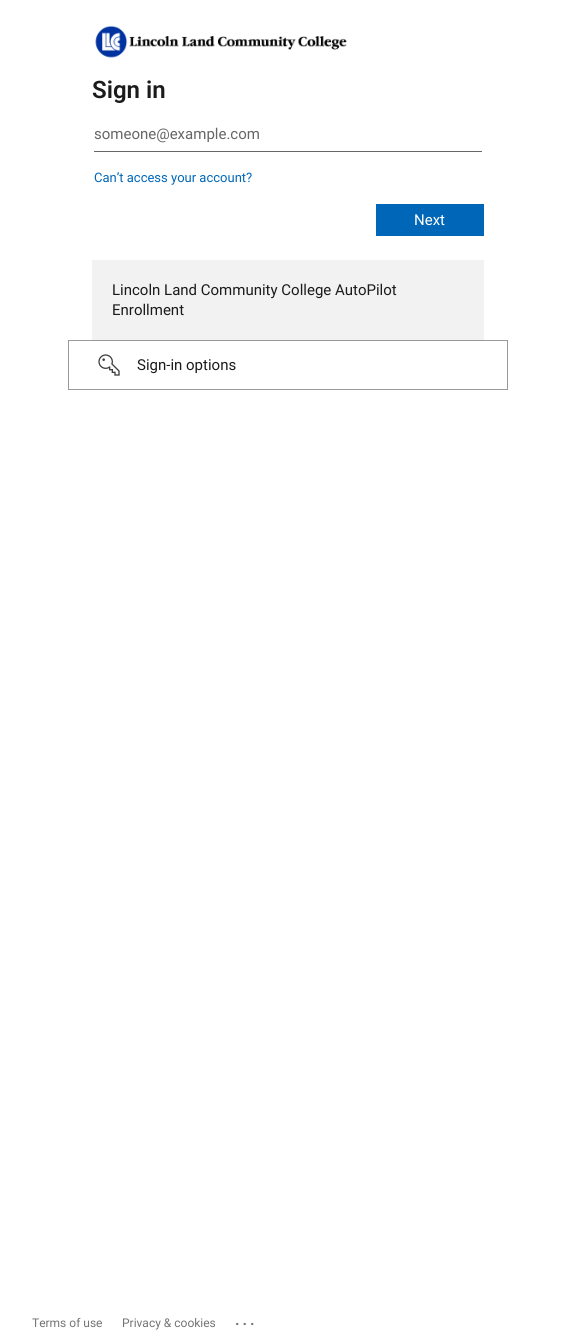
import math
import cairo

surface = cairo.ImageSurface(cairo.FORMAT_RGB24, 576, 1337)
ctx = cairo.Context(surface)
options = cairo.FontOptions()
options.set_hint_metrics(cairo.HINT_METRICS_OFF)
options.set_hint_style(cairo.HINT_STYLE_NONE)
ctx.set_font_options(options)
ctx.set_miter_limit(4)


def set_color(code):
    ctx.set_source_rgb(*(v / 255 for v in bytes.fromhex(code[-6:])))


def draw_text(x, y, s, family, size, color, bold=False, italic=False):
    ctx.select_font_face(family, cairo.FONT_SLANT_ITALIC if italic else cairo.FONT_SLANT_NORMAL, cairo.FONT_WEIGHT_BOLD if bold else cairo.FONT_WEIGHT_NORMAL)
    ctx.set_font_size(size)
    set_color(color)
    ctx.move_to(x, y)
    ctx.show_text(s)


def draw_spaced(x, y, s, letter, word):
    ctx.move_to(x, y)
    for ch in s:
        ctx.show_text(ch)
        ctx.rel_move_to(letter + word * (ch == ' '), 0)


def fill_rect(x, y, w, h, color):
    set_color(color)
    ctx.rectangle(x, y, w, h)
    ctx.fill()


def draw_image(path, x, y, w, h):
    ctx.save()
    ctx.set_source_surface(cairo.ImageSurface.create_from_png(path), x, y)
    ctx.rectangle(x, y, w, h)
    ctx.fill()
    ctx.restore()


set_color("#ffffff")
ctx.paint()
draw_image("assets/img1.png", 95, 25, 252, 33)
draw_text(92, 98, "Sign in", "Roboto SemiBold", 24, "#1b1b1b")
fill_rect(94, 151, 388, 1, "#666666")
draw_text(94, 139, "someone@example.com", "Roboto", 15, "#666666")
draw_text(94, 182, "Can’t access your account?", "Roboto", 13, "#0067b8")
fill_rect(376, 204, 108, 32, "#0067b8")
draw_text(414, 225, "Next", "Roboto", 15, "#ffffff")
fill_rect(92, 260, 392, 80, "#f2f2f2")
draw_text(112, 295, "Lincoln Land Community College AutoPilot", "Roboto", 15, "#1b1b1b")
draw_text(112, 315, "Enrollment", "Roboto", 15, "#1b1b1b")
ctx.rectangle(68.5, 340.5, 439, 49)
set_color("#999999")
ctx.set_line_width(1)
ctx.stroke()
draw_image("assets/img2.png", 98, 354, 22, 22)
draw_text(137, 370, "Sign-in options", "Roboto", 15, "#1b1b1b")
draw_text(32, 1327, "Terms of use", "Roboto", 12, "#747474")
draw_text(122, 1327, "Privacy & cookies", "Roboto", 12, "#747474")
ctx.select_font_face("Roboto SemiBold")
ctx.set_font_size(16)
draw_spaced(235, 1325, "...", 3, 0)
surface.write_to_png("output.png")
